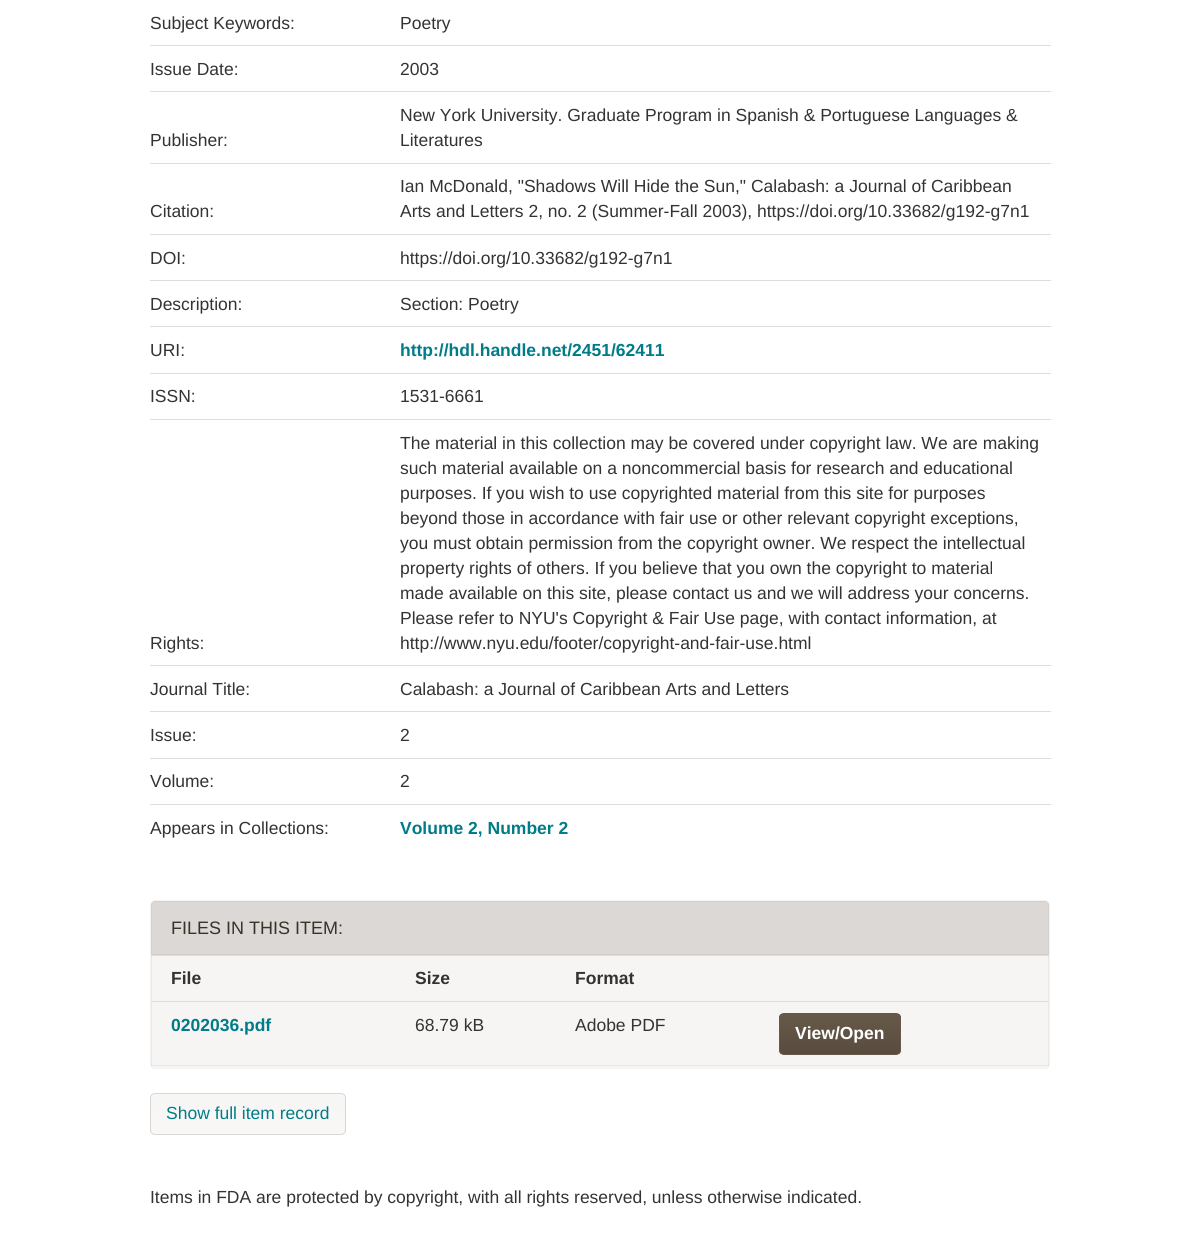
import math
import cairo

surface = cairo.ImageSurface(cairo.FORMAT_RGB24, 1200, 1239)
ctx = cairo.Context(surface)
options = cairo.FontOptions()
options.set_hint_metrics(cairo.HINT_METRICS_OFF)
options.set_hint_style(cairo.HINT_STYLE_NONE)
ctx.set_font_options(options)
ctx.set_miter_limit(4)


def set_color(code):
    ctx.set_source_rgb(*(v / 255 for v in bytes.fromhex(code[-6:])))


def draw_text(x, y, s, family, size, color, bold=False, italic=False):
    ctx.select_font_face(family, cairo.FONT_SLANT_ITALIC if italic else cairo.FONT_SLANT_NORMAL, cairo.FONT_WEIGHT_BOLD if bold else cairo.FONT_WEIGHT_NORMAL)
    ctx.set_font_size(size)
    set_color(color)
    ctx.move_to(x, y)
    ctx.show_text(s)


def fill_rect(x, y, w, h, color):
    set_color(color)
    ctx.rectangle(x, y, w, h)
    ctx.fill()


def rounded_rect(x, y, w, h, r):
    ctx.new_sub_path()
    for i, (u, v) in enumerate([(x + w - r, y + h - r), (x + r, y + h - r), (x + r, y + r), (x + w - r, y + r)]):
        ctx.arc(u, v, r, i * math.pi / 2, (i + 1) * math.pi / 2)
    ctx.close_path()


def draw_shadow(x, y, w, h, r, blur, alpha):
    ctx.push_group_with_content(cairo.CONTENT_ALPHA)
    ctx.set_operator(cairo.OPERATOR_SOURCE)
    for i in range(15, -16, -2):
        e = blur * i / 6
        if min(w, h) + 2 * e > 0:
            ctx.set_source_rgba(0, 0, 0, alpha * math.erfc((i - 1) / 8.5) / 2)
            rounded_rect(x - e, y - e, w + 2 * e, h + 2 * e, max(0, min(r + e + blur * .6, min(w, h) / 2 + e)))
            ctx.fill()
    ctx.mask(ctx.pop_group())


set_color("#ffffff")
ctx.paint()
draw_text(150, 29, "Subject Keywords:", "Liberation Sans", 17.5, "#333333")
draw_text(400, 29, "Poetry", "Liberation Sans", 17.5, "#333333")
draw_text(150, 75, "Issue Date:", "Liberation Sans", 17.5, "#333333")
fill_rect(150, 45, 901, 1, "#dddddd")
draw_text(400, 75, "2003", "Liberation Sans", 17.5, "#333333")
draw_text(150, 146, "Publisher:", "Liberation Sans", 17.5, "#333333")
fill_rect(150, 91, 901, 1, "#dddddd")
draw_text(400, 121, "New York University. Graduate Program in Spanish & Portuguese Languages &", "Liberation Sans", 17.5, "#333333")
draw_text(400, 146, "Literatures", "Liberation Sans", 17.5, "#333333")
draw_text(150, 217, "Citation:", "Liberation Sans", 17.5, "#333333")
fill_rect(150, 163, 901, 1, "#dddddd")
draw_text(400, 192, "Ian McDonald, \"Shadows Will Hide the Sun,\" Calabash: a Journal of Caribbean", "Liberation Sans", 17.5, "#333333")
draw_text(400, 217, "Arts and Letters 2, no. 2 (Summer-Fall 2003), https://doi.org/10.33682/g192-g7n1", "Liberation Sans", 17.5, "#333333")
draw_text(150, 264, "DOI:", "Liberation Sans", 17.5, "#333333")
fill_rect(150, 234, 901, 1, "#dddddd")
draw_text(400, 264, "https://doi.org/10.33682/g192-g7n1", "Liberation Sans", 17.5, "#333333")
draw_text(150, 310, "Description:", "Liberation Sans", 17.5, "#333333")
fill_rect(150, 280, 901, 1, "#dddddd")
draw_text(400, 310, "Section: Poetry", "Liberation Sans", 17.5, "#333333")
draw_text(150, 356, "URI:", "Liberation Sans", 17.5, "#333333")
fill_rect(150, 326, 901, 1, "#dddddd")
draw_text(400, 356, "http://hdl.handle.net/2451/62411", "Liberation Sans", 17.5, "#007c88", bold=True)
draw_text(150, 402, "ISSN:", "Liberation Sans", 17.5, "#333333")
fill_rect(150, 373, 901, 1, "#dddddd")
draw_text(400, 402, "1531-6661", "Liberation Sans", 17.5, "#333333")
draw_text(150, 649, "Rights:", "Liberation Sans", 17.5, "#333333")
fill_rect(150, 419, 901, 1, "#dddddd")
draw_text(400, 449, "The material in this collection may be covered under copyright law. We are making", "Liberation Sans", 17.5, "#333333")
draw_text(400, 474, "such material available on a noncommercial basis for research and educational", "Liberation Sans", 17.5, "#333333")
draw_text(400, 499, "purposes. If you wish to use copyrighted material from this site for purposes", "Liberation Sans", 17.5, "#333333")
draw_text(400, 524, "beyond those in accordance with fair use or other relevant copyright exceptions,", "Liberation Sans", 17.5, "#333333")
draw_text(400, 549, "you must obtain permission from the copyright owner. We respect the intellectual", "Liberation Sans", 17.5, "#333333")
draw_text(400, 574, "property rights of others. If you believe that you own the copyright to material", "Liberation Sans", 17.5, "#333333")
draw_text(400, 599, "made available on this site, please contact us and we will address your concerns.", "Liberation Sans", 17.5, "#333333")
draw_text(400, 624, "Please refer to NYU's Copyright & Fair Use page, with contact information, at", "Liberation Sans", 17.5, "#333333")
draw_text(400, 649, "http://www.nyu.edu/footer/copyright-and-fair-use.html", "Liberation Sans", 17.5, "#333333")
draw_text(150, 695, "Journal Title:", "Liberation Sans", 17.5, "#333333")
fill_rect(150, 665, 901, 1, "#dddddd")
draw_text(400, 695, "Calabash: a Journal of Caribbean Arts and Letters", "Liberation Sans", 17.5, "#333333")
draw_text(150, 741, "Issue:", "Liberation Sans", 17.5, "#333333")
fill_rect(150, 711, 901, 1, "#dddddd")
draw_text(400, 741, "2", "Liberation Sans", 17.5, "#333333")
draw_text(150, 787, "Volume:", "Liberation Sans", 17.5, "#333333")
fill_rect(150, 758, 901, 1, "#dddddd")
draw_text(400, 787, "2", "Liberation Sans", 17.5, "#333333")
draw_text(150, 834, "Appears in Collections:", "Liberation Sans", 17.5, "#333333")
fill_rect(150, 804, 901, 1, "#dddddd")
draw_text(400, 834, "Volume 2, Number 2", "Liberation Sans", 17.5, "#007c88", bold=True)
set_color("#000000")
draw_shadow(150, 901, 900, 168, 5, 0.5, 0.05)
set_color("#f6f5f4")
rounded_rect(150, 900, 900, 168, 5)
ctx.fill()
set_color("#dcd8d5")
ctx.new_path()
ctx.move_to(155, 901)
ctx.line_to(1045, 901)
ctx.curve_to(1047, 901, 1049, 903, 1049, 905)
ctx.line_to(1049, 955)
ctx.line_to(151, 955)
ctx.line_to(151, 905)
ctx.curve_to(151, 903, 153, 901, 155, 901)
ctx.close_path()
ctx.fill()
ctx.new_path()
ctx.move_to(155, 901.5)
ctx.line_to(1045, 901.5)
ctx.curve_to(1047, 901.5, 1048.5, 903, 1048.5, 905)
ctx.line_to(1048.5, 954.5)
ctx.line_to(151.5, 954.5)
ctx.line_to(151.5, 905)
ctx.curve_to(151.5, 903, 153, 901.5, 155, 901.5)
ctx.close_path()
ctx.set_source_rgba(0.71, 0.678, 0.651, 0.2)
ctx.set_line_width(1)
ctx.stroke()
draw_text(171, 934, "FILES IN THIS ITEM:", "Liberation Sans", 18, "#3a3229")
fill_rect(1048, 955, 1, 111, "#e9e7e4")
ctx.set_source_rgba(0.71, 0.678, 0.651, 0.2)
ctx.rectangle(151, 1065, 898, 1)
ctx.fill()
ctx.rectangle(151, 955, 1, 111)
ctx.fill()
fill_rect(151, 955, 898, 1, "#dddddd")
draw_text(171, 984, "File", "Liberation Sans", 17.5, "#333333", bold=True)
draw_text(415, 984, "Size", "Liberation Sans", 17.5, "#333333", bold=True)
draw_text(575, 984, "Format", "Liberation Sans", 17.5, "#333333", bold=True)
draw_text(171, 1031, "0202036.pdf", "Liberation Sans", 17.5, "#007c88", bold=True)
draw_text(415, 1031, "68.79 kB", "Liberation Sans", 17.5, "#333333")
draw_text(575, 1031, "Adobe PDF", "Liberation Sans", 17.5, "#333333")
fill_rect(151, 1001, 898, 1, "#dddddd")
ctx.save()
rounded_rect(779, 1013, 122, 42, 5)
ctx.clip()
gradient = cairo.LinearGradient(840, 1014, 840, 1054)
gradient.add_color_stop_rgba(0, 0.404, 0.349, 0.286, 1)
gradient.add_color_stop_rgba(1, 0.345, 0.298, 0.243, 1)
ctx.set_source(gradient)
ctx.rectangle(779, 1014, 122, 40)
ctx.fill()
ctx.restore()
rounded_rect(779.5, 1013.5, 121, 41, 4.5)
set_color("#675949")
ctx.stroke()
draw_text(795, 1039, "View/Open", "Liberation Sans", 17.5, "#ffffff", bold=True)
ctx.save()
rounded_rect(150, 1093, 196, 42, 5)
ctx.clip()
gradient = cairo.LinearGradient(248, 1094, 248, 1134)
gradient.add_color_stop_rgba(0, 0.965, 0.965, 0.961, 1)
gradient.add_color_stop_rgba(1, 0.973, 0.969, 0.965, 1)
ctx.set_source(gradient)
ctx.rectangle(150, 1094, 196, 40)
ctx.fill()
ctx.restore()
rounded_rect(150.5, 1093.5, 195, 41, 4.5)
set_color("#dad6d3")
ctx.stroke()
draw_text(166, 1119, "Show full item record", "Liberation Sans", 17.5, "#007c88")
draw_text(150, 1203, "Items in FDA are protected by copyright, with all rights reserved, unless otherwise indicated.", "Liberation Sans", 17.5, "#333333")
surface.write_to_png("output.png")
